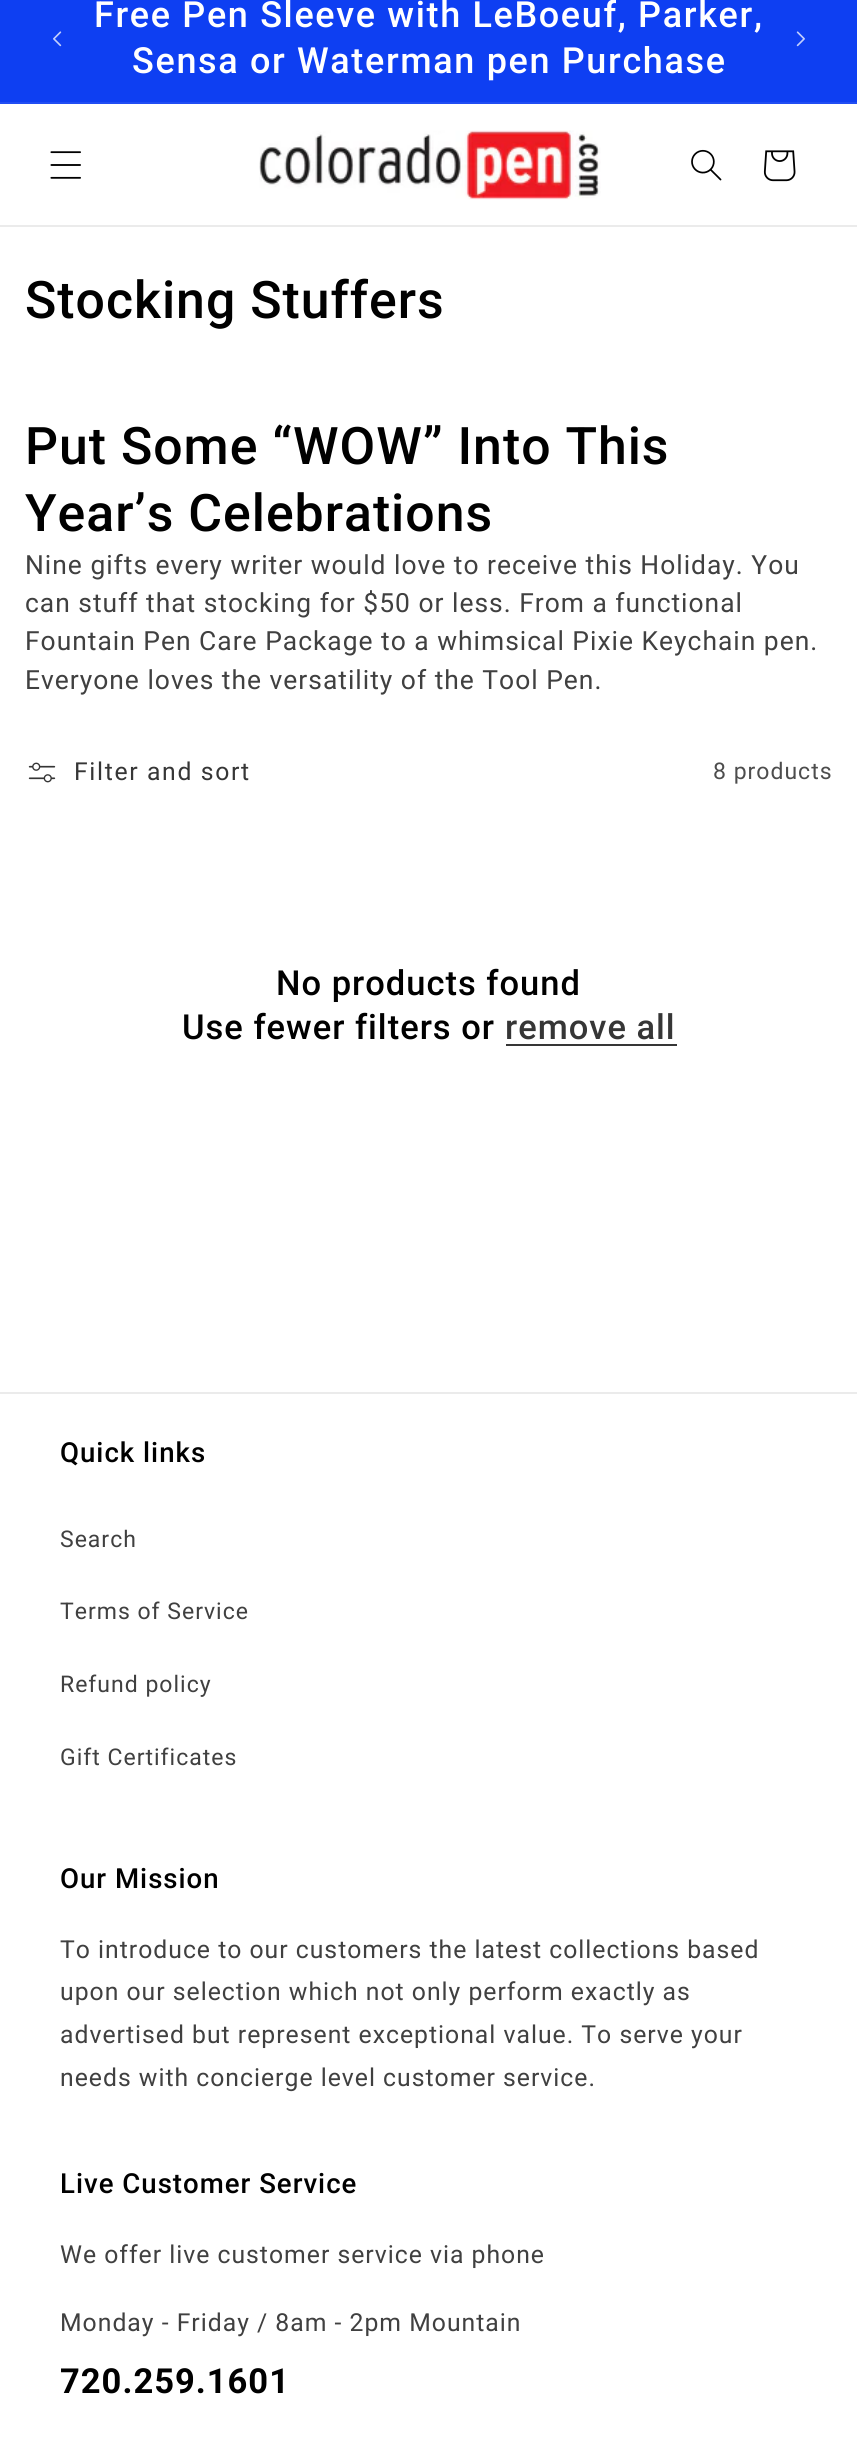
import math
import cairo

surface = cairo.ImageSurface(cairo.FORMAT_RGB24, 857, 2463)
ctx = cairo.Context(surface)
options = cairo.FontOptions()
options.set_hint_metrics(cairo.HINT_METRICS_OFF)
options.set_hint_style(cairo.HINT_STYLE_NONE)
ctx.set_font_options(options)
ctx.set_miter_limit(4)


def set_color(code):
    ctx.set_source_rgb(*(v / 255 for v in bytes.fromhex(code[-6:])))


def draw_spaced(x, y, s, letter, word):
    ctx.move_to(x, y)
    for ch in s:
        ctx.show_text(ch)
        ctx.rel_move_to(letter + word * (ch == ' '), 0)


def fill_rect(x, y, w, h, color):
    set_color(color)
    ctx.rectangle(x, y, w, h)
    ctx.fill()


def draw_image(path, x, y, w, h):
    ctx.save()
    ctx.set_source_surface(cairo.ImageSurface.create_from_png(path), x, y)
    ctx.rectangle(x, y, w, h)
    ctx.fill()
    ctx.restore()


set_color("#ffffff")
ctx.paint()
fill_rect(0, 0, 857, 102, "#0e3ff2")
fill_rect(0, 102, 857, 2, "#214ef3")
draw_image("assets/img1.png", 53, 31, 9, 16)
ctx.select_font_face("Roboto Medium")
ctx.set_font_size(36)
set_color("#ffffff")
draw_spaced(94, 27, "Free Pen Sleeve with LeBoeuf, Parker,", 1.65, 0)
draw_spaced(132, 73, "Sensa or Waterman pen Purchase", 1.65, 0)
draw_image("assets/img2.png", 796, 31, 9, 16)
fill_rect(0, 225, 857, 2, "#ebebeb")
draw_image("assets/img3.png", 50, 151, 31, 28)
draw_image("assets/img4.png", 259, 130, 342, 70)
draw_image("assets/img5.png", 691, 149, 31, 32)
draw_image("assets/img6.png", 763, 150, 33, 32)
ctx.set_font_size(51.75)
set_color("#000000")
draw_spaced(25, 318, "Stocking Stuffers", 1, 0)
draw_spaced(25, 464, "Put Some “WOW” Into This", 1, 0)
draw_spaced(25, 531, "Year’s Celebrations", 1, 0)
ctx.select_font_face("Roboto")
ctx.set_font_size(26.4)
set_color("#404040")
draw_spaced(25, 574, "Nine gifts every writer would love to receive this Holiday. You", 1, 0)
draw_spaced(25, 612, "can stuff that stocking for $50 or less. From a functional", 1, 0)
draw_spaced(25, 650, "Fountain Pen Care Package to a whimsical Pixie Keychain pen.", 1, 0)
draw_spaced(25, 689, "Everyone loves the versatility of the Tool Pen.", 1, 0)
draw_image("assets/img7.png", 28, 762, 28, 21)
ctx.set_font_size(24.75)
set_color("#363636")
draw_spaced(74, 780, "Filter and sort", 1.65, 0)
ctx.set_font_size(23)
set_color("#4d4d4d")
draw_spaced(713, 779, "8 products", 1, 0)
ctx.select_font_face("Roboto Medium")
ctx.set_font_size(34.5)
set_color("#000000")
draw_spaced(276, 995, "No products found", 1, 0)
draw_spaced(182, 1039, "Use fewer filters or", 1, 0)
set_color("#363636")
draw_spaced(505, 1039, "remove all", 1, 0)
fill_rect(506, 1044, 171, 2, "#363636")
fill_rect(0, 1392, 857, 2, "#ebebeb")
ctx.set_font_size(27.6)
set_color("#000000")
draw_spaced(60, 1462, "Quick links", 1, 0)
ctx.select_font_face("Roboto")
ctx.set_font_size(23)
set_color("#404040")
draw_spaced(60, 1547, "Search", 1, 0)
draw_spaced(60, 1619, "Terms of Service", 1, 0)
draw_spaced(60, 1692, "Refund policy", 1, 0)
draw_spaced(60, 1765, "Gift Certificates", 1, 0)
ctx.select_font_face("Roboto Medium")
ctx.set_font_size(27.6)
set_color("#000000")
draw_spaced(60, 1888, "Our Mission", 1, 0)
ctx.select_font_face("Roboto")
ctx.set_font_size(24.75)
set_color("#404040")
draw_spaced(60, 1958, "To introduce to our customers the latest collections based", 1, 0)
draw_spaced(60, 2000, "upon our selection which not only perform exactly as", 1, 0)
draw_spaced(60, 2043, "advertised but represent exceptional value. To serve your", 1, 0)
draw_spaced(60, 2086, "needs with concierge level customer service.", 1, 0)
ctx.select_font_face("Roboto Medium")
ctx.set_font_size(27.6)
set_color("#000000")
draw_spaced(60, 2193, "Live Customer Service", 1, 0)
ctx.select_font_face("Roboto")
ctx.set_font_size(24.75)
set_color("#404040")
draw_spaced(60, 2263, "We offer live customer service via phone", 1, 0)
draw_spaced(60, 2331, "Monday - Friday / 8am - 2pm Mountain", 1, 0)
ctx.select_font_face("Roboto", cairo.FONT_SLANT_NORMAL, cairo.FONT_WEIGHT_BOLD)
ctx.set_font_size(34.5)
set_color("#000000")
draw_spaced(60, 2393, "720.259.1601", 1, 0)
surface.write_to_png("output.png")
